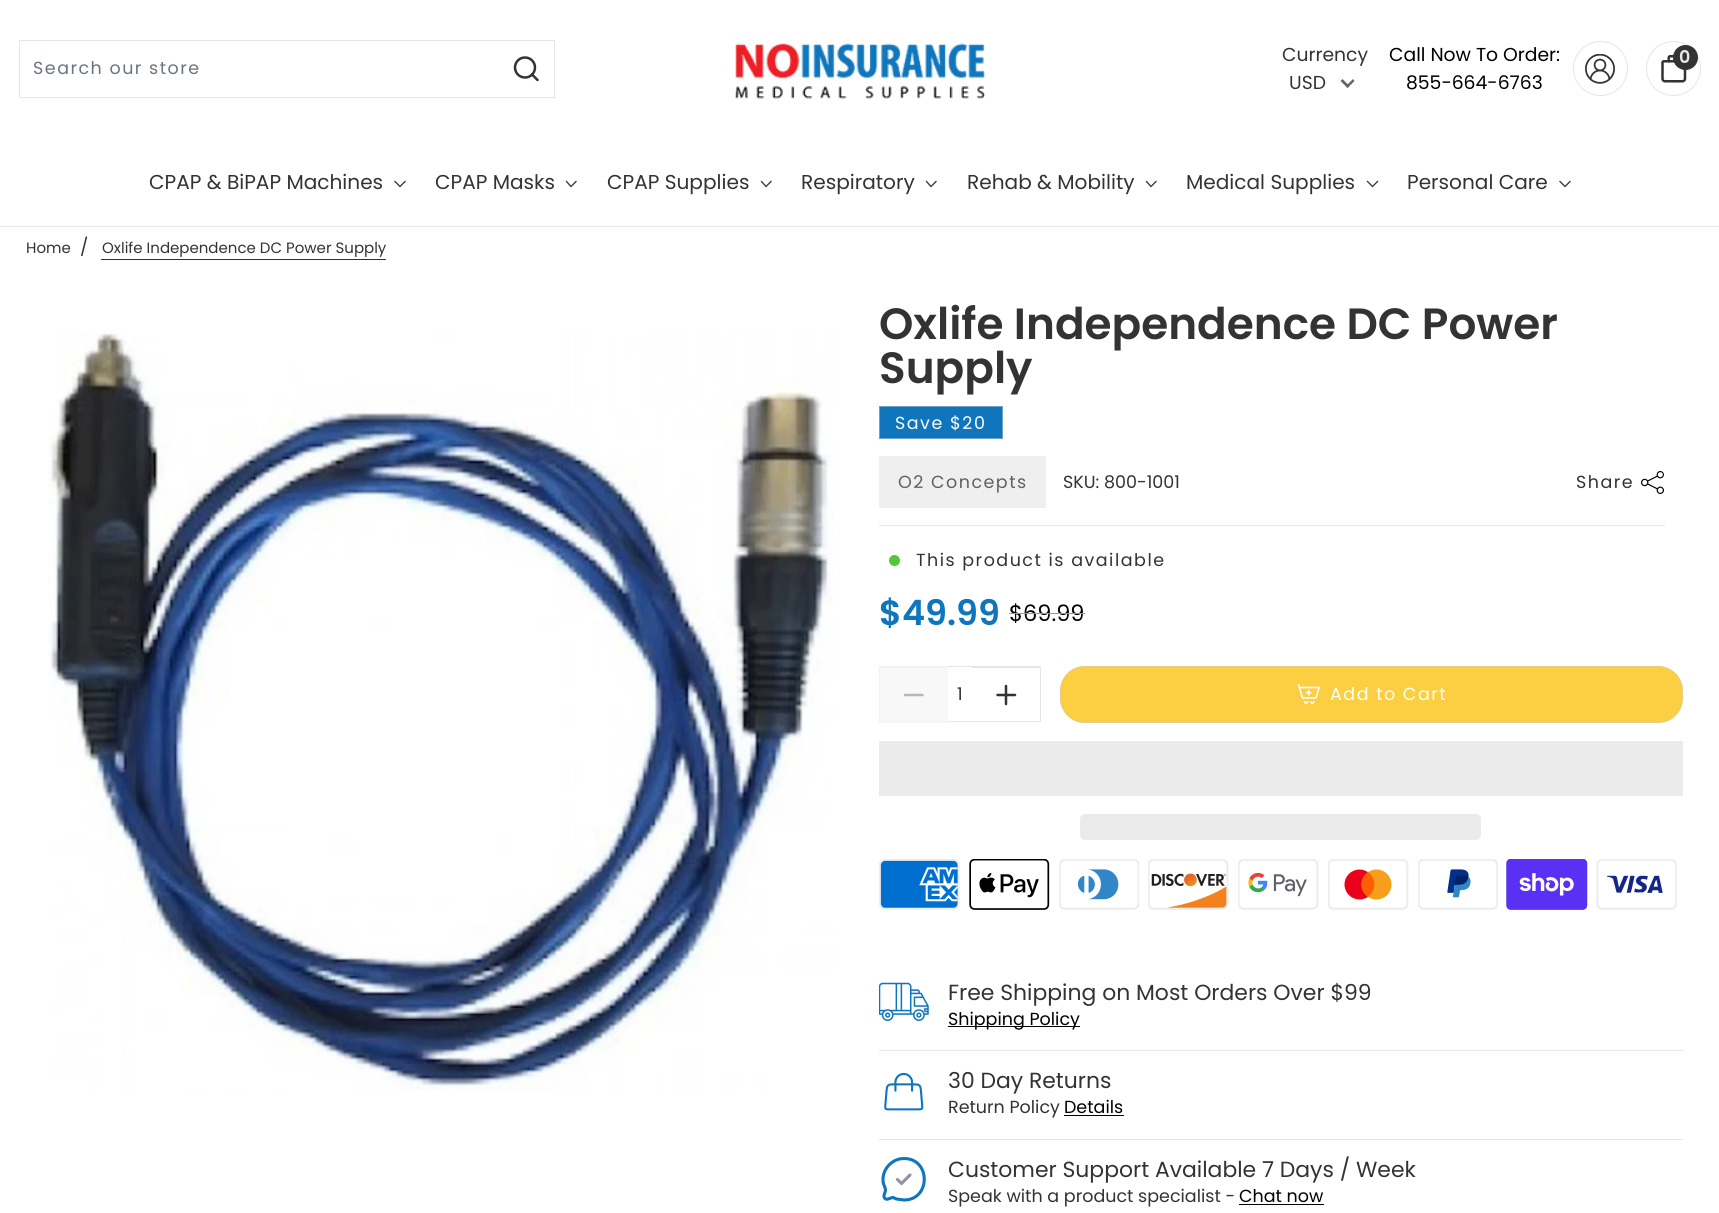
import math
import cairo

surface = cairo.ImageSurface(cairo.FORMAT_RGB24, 1719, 1213)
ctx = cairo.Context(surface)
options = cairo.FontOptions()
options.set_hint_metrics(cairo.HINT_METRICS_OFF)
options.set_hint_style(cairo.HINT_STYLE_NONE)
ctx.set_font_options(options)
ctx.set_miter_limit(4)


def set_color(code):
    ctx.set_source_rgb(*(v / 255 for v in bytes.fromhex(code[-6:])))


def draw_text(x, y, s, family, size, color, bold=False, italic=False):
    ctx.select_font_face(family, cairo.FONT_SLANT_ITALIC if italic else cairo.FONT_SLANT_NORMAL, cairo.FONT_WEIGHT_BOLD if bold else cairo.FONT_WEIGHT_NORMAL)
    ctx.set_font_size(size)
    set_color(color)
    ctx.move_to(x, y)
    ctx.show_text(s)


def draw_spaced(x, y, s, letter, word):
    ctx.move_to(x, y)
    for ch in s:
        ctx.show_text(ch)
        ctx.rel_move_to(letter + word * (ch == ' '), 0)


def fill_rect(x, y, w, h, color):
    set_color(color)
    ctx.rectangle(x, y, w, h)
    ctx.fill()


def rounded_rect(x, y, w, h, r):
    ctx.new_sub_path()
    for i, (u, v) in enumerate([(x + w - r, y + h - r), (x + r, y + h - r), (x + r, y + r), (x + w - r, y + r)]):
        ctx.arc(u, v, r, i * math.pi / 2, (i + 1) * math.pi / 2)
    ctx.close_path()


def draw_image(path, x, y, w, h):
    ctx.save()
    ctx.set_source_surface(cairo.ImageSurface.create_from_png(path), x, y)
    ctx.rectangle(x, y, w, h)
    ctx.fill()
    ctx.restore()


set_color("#ffffff")
ctx.paint()
fill_rect(0, 226, 1719, 1, "#e6e6e6")
ctx.rectangle(19.5, 40.5, 535, 57)
ctx.set_line_width(1)
ctx.stroke()
ctx.select_font_face("Poppins")
ctx.set_font_size(17.5)
set_color("#6c757d")
draw_spaced(33, 74, "Search our store", 1.5, 0)
ctx.new_path()
ctx.arc(525, 67.5, 10, 0, 2 * math.pi)
set_color("#333333")
ctx.set_line_width(2.5)
ctx.stroke()
ctx.new_path()
ctx.move_to(537.5, 80)
ctx.line_to(532, 74.5)
ctx.set_line_cap(cairo.LINE_CAP_ROUND)
ctx.set_line_join(cairo.LINE_JOIN_ROUND)
ctx.stroke()
draw_image("assets/img1.png", 735, 43, 250, 56)
draw_text(1282, 61, "Currency", "Poppins", 18.75, "#333333")
draw_text(1289, 89, "USD", "Poppins", 18.75, "#333333")
set_color("#666666")
ctx.new_path()
ctx.move_to(1353, 79)
ctx.line_to(1354.5, 81)
ctx.line_to(1347.5, 88)
ctx.line_to(1346, 86)
ctx.close_path()
ctx.fill()
ctx.new_path()
ctx.move_to(1342.5, 79)
ctx.line_to(1349.5, 86)
ctx.line_to(1347.5, 88)
ctx.line_to(1340.5, 81)
ctx.close_path()
ctx.fill()
draw_text(1389, 61, "Call Now To Order:", "Poppins", 18.75, "#000000")
draw_text(1406, 89, "855-664-6763", "Poppins", 18.75, "#000000")
ctx.new_path()
ctx.arc(1600.5, 68.5, 27, 0, 2 * math.pi)
set_color("#e6e6e6")
ctx.set_line_width(1)
ctx.set_line_cap(cairo.LINE_CAP_BUTT)
ctx.set_line_join(cairo.LINE_JOIN_MITER)
ctx.stroke()
draw_image("assets/img2.png", 1585, 54, 30, 30)
ctx.arc(1673.5, 68.5, 27, 0, 2 * math.pi)
ctx.stroke()
draw_image("assets/img3.png", 1661, 55, 26, 28)
set_color("#333333")
ctx.arc(1685.5, 57.5, 12, 0, 2 * math.pi)
ctx.fill_preserve()
ctx.stroke()
draw_text(1679, 63, "0", "Poppins SemiBold", 17.5, "#e9e9e9")
draw_text(149, 189, "CPAP & BiPAP Machines", "Poppins", 20.1, "#333333")
ctx.new_path()
ctx.move_to(405, 181.5)
ctx.line_to(400, 186.5)
ctx.line_to(395, 181.5)
ctx.set_line_width(1.3)
ctx.set_line_cap(cairo.LINE_CAP_SQUARE)
ctx.stroke()
draw_text(435, 189, "CPAP Masks", "Poppins", 20.1, "#333333")
ctx.new_path()
ctx.move_to(576, 181.5)
ctx.line_to(571, 186.5)
ctx.line_to(566.5, 181.5)
ctx.stroke()
draw_text(607, 189, "CPAP Supplies", "Poppins", 20.1, "#333333")
ctx.new_path()
ctx.move_to(771, 181.5)
ctx.line_to(766, 186.5)
ctx.line_to(761.5, 181.5)
ctx.stroke()
draw_text(801, 189, "Respiratory", "Poppins", 20.1, "#333333")
ctx.new_path()
ctx.move_to(936, 181.5)
ctx.line_to(931, 186.5)
ctx.line_to(926.5, 181.5)
ctx.stroke()
draw_text(967, 189, "Rehab & Mobility", "Poppins", 20.1, "#333333")
ctx.new_path()
ctx.move_to(1156, 181.5)
ctx.line_to(1151, 186.5)
ctx.line_to(1146.5, 181.5)
ctx.stroke()
draw_text(1186, 189, "Medical Supplies", "Poppins", 20.1, "#333333")
ctx.new_path()
ctx.move_to(1377.5, 181.5)
ctx.line_to(1372.5, 186.5)
ctx.line_to(1367.5, 181.5)
ctx.stroke()
draw_text(1407, 189, "Personal Care", "Poppins", 20.1, "#333333")
ctx.new_path()
ctx.move_to(1570, 181.5)
ctx.line_to(1565, 186.5)
ctx.line_to(1560, 181.5)
ctx.stroke()
draw_text(26, 253, "Home", "Poppins", 15, "#333333")
draw_text(80, 253, "/", "Poppins", 17.5, "#333333")
draw_text(102, 253, "Oxlife Independence DC Power Supply", "Poppins", 15, "#333333")
fill_rect(101, 259, 285, 1, "#333333")
draw_image("assets/img4.png", 48, 330, 785, 761)
draw_text(879, 339, "Oxlife Independence DC Power", "Poppins SemiBold", 43.75, "#333333")
draw_text(879, 383, "Supply", "Poppins SemiBold", 43.75, "#333333")
set_color("#0f75bc")
ctx.rectangle(879.5, 406.5, 123, 32)
ctx.fill_preserve()
set_color("#6ea1c4")
ctx.set_line_width(1)
ctx.set_line_cap(cairo.LINE_CAP_BUTT)
ctx.stroke()
ctx.select_font_face("Poppins")
ctx.set_font_size(17.5)
set_color("#ffffff")
draw_spaced(895, 429, "Save $20", 1.5, 0)
fill_rect(879, 525, 786, 1, "#e6e6e6")
fill_rect(879, 456, 167, 52, "#efefef")
set_color("#606060")
draw_spaced(898, 488, "O2 Concepts", 1.5, 0)
draw_text(1063, 488, "SKU: 800-1001", "Poppins", 17.5, "#333333")
draw_spaced(1576, 488, "Share", 1.5, 0)
draw_image("assets/img5.png", 1641, 471, 23, 23)
set_color("#54c63a")
ctx.arc(894.5, 560.5, 5.5, 0, 2 * math.pi)
ctx.fill()
set_color("#333333")
draw_spaced(916, 566, "This product is available", 1.5, 0)
draw_text(879, 625, "$49.99", "Poppins SemiBold", 35, "#0f75bc")
draw_text(1009, 621, "$69.99", "Poppins", 22.5, "#000000")
fill_rect(1009, 613, 76, 1, "#999999")
fill_rect(879, 666, 69, 57, "#f8f8f8")
set_color("#f3f3f3")
ctx.new_path()
ctx.move_to(879, 666)
ctx.line_to(948, 666)
ctx.line_to(948, 668)
ctx.line_to(880, 668)
ctx.close_path()
ctx.fill()
ctx.new_path()
ctx.move_to(948, 722)
ctx.line_to(879, 722)
ctx.line_to(880, 721)
ctx.line_to(948, 721)
ctx.close_path()
ctx.fill()
ctx.set_source_rgba(0.929, 0.929, 0.929, 0.5)
ctx.new_path()
ctx.move_to(879, 722)
ctx.line_to(879, 666)
ctx.line_to(880, 668)
ctx.line_to(880, 721)
ctx.close_path()
ctx.fill()
ctx.new_path()
ctx.move_to(905, 695)
ctx.line_to(922.5, 695)
set_color("#b8b8b8")
ctx.set_line_width(2.5)
ctx.set_line_cap(cairo.LINE_CAP_ROUND)
ctx.set_line_join(cairo.LINE_JOIN_ROUND)
ctx.stroke()
fill_rect(948, 666, 25, 1, "#e6e6e6")
fill_rect(948, 721, 25, 1, "#e6e6e6")
draw_text(957, 700, "1", "Poppins", 17.5, "#333333")
ctx.set_source_rgba(0.8, 0.8, 0.8, 0.5)
ctx.new_path()
ctx.move_to(972, 666)
ctx.line_to(1041, 666)
ctx.line_to(1040, 668)
ctx.line_to(972, 668)
ctx.close_path()
ctx.fill()
ctx.new_path()
ctx.move_to(1041, 666)
ctx.line_to(1041, 722)
ctx.line_to(1040, 721)
ctx.line_to(1040, 668)
ctx.close_path()
ctx.fill()
ctx.new_path()
ctx.move_to(1041, 722)
ctx.line_to(972, 722)
ctx.line_to(972, 721)
ctx.line_to(1040, 721)
ctx.close_path()
ctx.fill()
ctx.new_path()
ctx.move_to(1006, 686)
ctx.line_to(1006, 704)
ctx.move_to(997.5, 695)
ctx.line_to(1015, 695)
set_color("#333333")
ctx.stroke()
set_color("#fcce42")
rounded_rect(1060, 666, 623, 57, 25)
ctx.fill()
rounded_rect(1060.5, 666.5, 622, 56, 24.5)
ctx.set_source_rgba(0.8, 0.8, 0.8, 0.5)
ctx.set_line_width(1)
ctx.set_line_cap(cairo.LINE_CAP_BUTT)
ctx.set_line_join(cairo.LINE_JOIN_MITER)
ctx.stroke()
draw_image("assets/img6.png", 1297, 684, 23, 20)
set_color("#ffffff")
draw_spaced(1330, 700, "Add to Cart", 1.5, 0)
fill_rect(879, 741, 804, 55, "#ebebeb")
rounded_rect(1080, 814, 401, 26, 5)
ctx.fill()
draw_image("assets/img7.png", 879, 859, 81, 51)
draw_image("assets/img8.png", 969, 859, 81, 51)
draw_image("assets/img9.png", 1059, 859, 80, 51)
draw_image("assets/img10.png", 1148, 859, 81, 51)
draw_image("assets/img11.png", 1238, 859, 81, 51)
draw_image("assets/img12.png", 1328, 859, 81, 51)
draw_image("assets/img13.png", 1418, 859, 80, 51)
draw_image("assets/img14.png", 1506, 859, 82, 51)
draw_image("assets/img15.png", 1596, 859, 81, 51)
fill_rect(879, 1050, 804, 1, "#e6e6e6")
draw_image("assets/img16.png", 879, 982, 50, 39)
draw_text(948, 1000, "Free Shipping on Most Orders Over $99", "Poppins", 21.9, "#333333")
fill_rect(948, 1026, 132, 1, "#000000")
draw_text(948, 1025, "Shipping Policy", "Poppins", 17.5, "#000000")
fill_rect(879, 1139, 804, 1, "#e6e6e6")
draw_image("assets/img17.png", 884, 1072, 40, 39)
draw_text(948, 1088, "30 Day Returns", "Poppins", 21.9, "#333333")
draw_text(948, 1113, "Return Policy", "Poppins", 17.5, "#333333")
draw_text(1064, 1113, "Details", "Poppins", 17.5, "#000000")
fill_rect(1064, 1115, 60, 1, "#000000")
ctx.new_path()
ctx.move_to(904, 1200)
ctx.curve_to(931, 1200, 931, 1158.5, 904, 1158.5)
ctx.curve_to(892, 1158.5, 882.5, 1169, 883, 1180.5)
ctx.curve_to(883, 1184.5, 885.5, 1187.5, 885.5, 1190)
ctx.curve_to(885.5, 1192.5, 882.5, 1196, 885, 1198.5)
ctx.curve_to(887, 1200.5, 890.5, 1197.5, 893, 1197.5)
ctx.line_to(896.5, 1199)
ctx.close_path()
set_color("#0f75bc")
ctx.set_line_width(3.1)
ctx.stroke()
ctx.new_path()
ctx.move_to(897.5, 1179.5)
ctx.line_to(901.5, 1183.5)
ctx.line_to(910, 1175)
set_color("#8e93a6")
ctx.set_line_cap(cairo.LINE_CAP_ROUND)
ctx.set_line_join(cairo.LINE_JOIN_ROUND)
ctx.stroke()
draw_text(948, 1177, "Customer Support Available 7 Days / Week", "Poppins", 21.9, "#333333")
draw_text(948, 1202, "Speak with a product specialist -", "Poppins", 17.5, "#333333")
draw_text(1239, 1202, "Chat now", "Poppins", 17.5, "#000000")
fill_rect(1239, 1204, 85, 1, "#000000")
surface.write_to_png("output.png")
